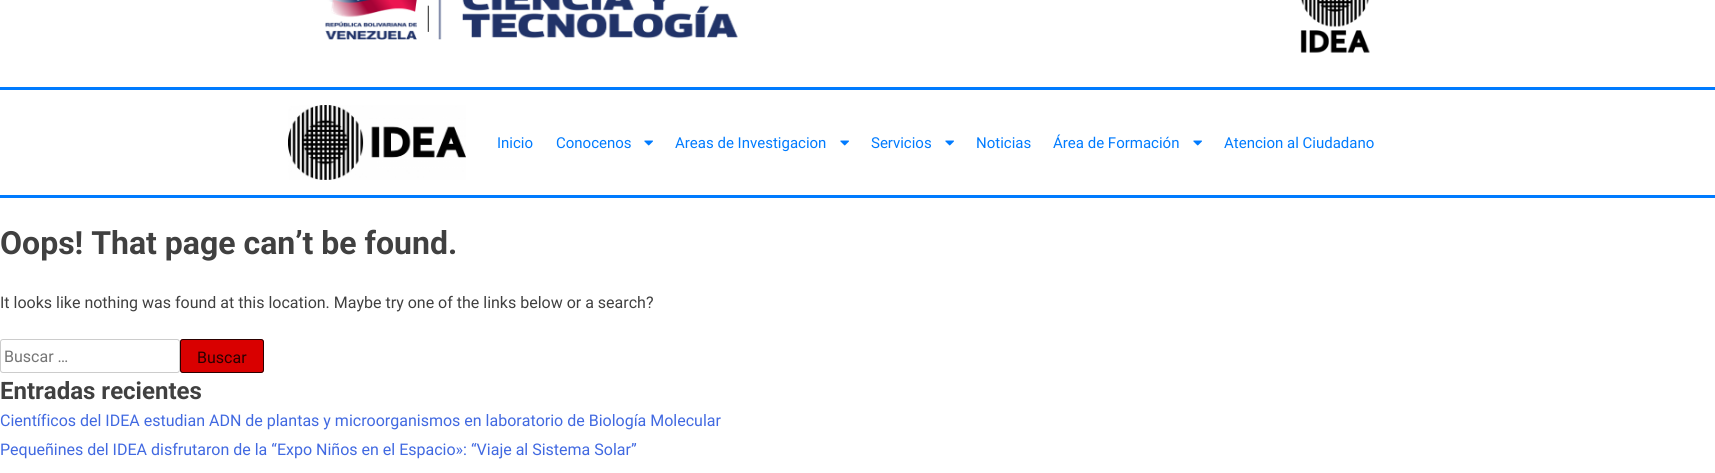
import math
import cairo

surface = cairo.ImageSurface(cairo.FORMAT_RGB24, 1715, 473)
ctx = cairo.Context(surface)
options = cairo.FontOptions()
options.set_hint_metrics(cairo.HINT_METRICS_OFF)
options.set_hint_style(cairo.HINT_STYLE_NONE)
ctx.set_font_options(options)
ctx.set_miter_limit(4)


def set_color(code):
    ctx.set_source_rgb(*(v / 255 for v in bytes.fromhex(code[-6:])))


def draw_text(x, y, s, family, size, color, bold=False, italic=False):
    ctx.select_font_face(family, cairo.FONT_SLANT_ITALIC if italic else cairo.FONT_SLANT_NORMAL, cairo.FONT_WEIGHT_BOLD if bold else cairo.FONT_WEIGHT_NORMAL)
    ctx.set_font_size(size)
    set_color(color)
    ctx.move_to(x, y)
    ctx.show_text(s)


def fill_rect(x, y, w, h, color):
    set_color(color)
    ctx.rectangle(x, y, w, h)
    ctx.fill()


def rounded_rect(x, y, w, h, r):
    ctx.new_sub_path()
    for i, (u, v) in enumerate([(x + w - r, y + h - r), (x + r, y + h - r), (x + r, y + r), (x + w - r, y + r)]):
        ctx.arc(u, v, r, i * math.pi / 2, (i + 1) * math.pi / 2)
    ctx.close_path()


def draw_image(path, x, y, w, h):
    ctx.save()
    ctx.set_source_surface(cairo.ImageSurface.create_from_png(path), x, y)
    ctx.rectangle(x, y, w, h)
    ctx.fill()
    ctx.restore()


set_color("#ffffff")
ctx.paint()
draw_image("assets/img1.png", 325, 0, 1045, 53)
fill_rect(0, 87, 1715, 3, "#007bff")
fill_rect(0, 195, 1715, 3, "#007bff")
draw_image("assets/img2.png", 288, 105, 178, 75)
draw_text(497, 148, "Inicio", "Roboto", 15, "#007bff")
draw_text(556, 148, "Conocenos", "Roboto", 15, "#007bff")
draw_image("assets/img3.png", 644, 140, 9, 6)
draw_text(675, 148, "Areas de Investigacion", "Roboto", 15, "#007bff")
draw_image("assets/img3.png", 840, 140, 9, 6)
draw_text(871, 148, "Servicios", "Roboto", 15, "#007bff")
draw_image("assets/img3.png", 945, 140, 9, 6)
draw_text(976, 148, "Noticias", "Roboto", 15, "#007bff")
draw_text(1053, 148, "Área de Formación", "Roboto", 15, "#007bff")
draw_image("assets/img3.png", 1193, 140, 9, 6)
draw_text(1224, 148, "Atencion al Ciudadano", "Roboto", 15, "#007bff")
draw_text(0, 254, "Oops! That page can’t be found.", "Roboto", 32, "#404040", bold=True)
draw_text(0, 308, "It looks like nothing was found at this location. Maybe try one of the links below or a search?", "Roboto", 16, "#404040")
rounded_rect(0.5, 339.5, 179, 33, 2.5)
set_color("#cccccc")
ctx.set_line_width(1)
ctx.stroke()
draw_text(4, 362, "Buscar …", "Roboto", 16, "#757575")
set_color("#d90000")
rounded_rect(180, 339, 84, 34, 3)
ctx.fill()
rounded_rect(180.5, 339.5, 83, 33, 2.5)
ctx.set_source_rgba(0, 0, 0, 0.8)
ctx.stroke()
draw_text(197, 363, "Buscar", "Roboto", 16, "#2b0000")
draw_text(0, 399, "Entradas recientes", "Roboto", 24, "#404040", bold=True)
draw_text(0, 426, "Científicos del IDEA estudian ADN de plantas y microorganismos en laboratorio de Biología Molecular", "Roboto", 16, "#4169e1")
draw_text(0, 455, "Pequeñines del IDEA disfrutaron de la “Expo Niños en el Espacio»: “Viaje al Sistema Solar”", "Roboto", 16, "#4169e1")
surface.write_to_png("output.png")
